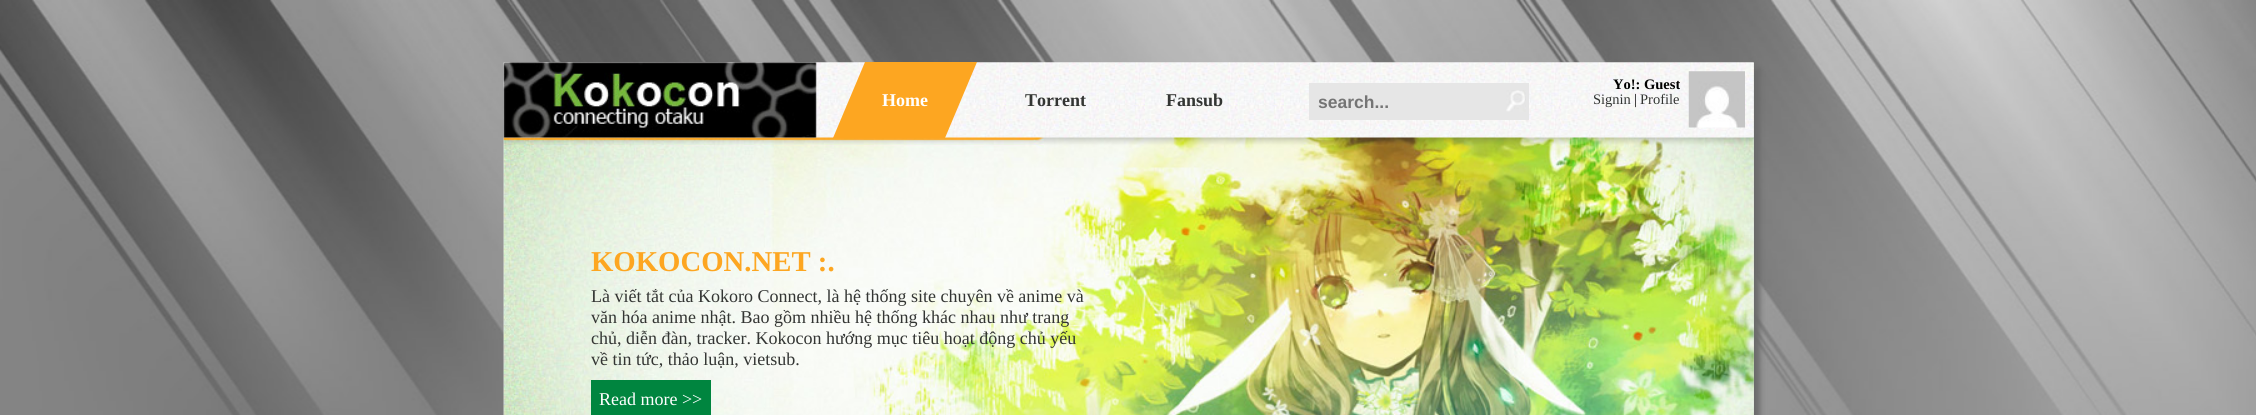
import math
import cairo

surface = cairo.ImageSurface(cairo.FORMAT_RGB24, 2256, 415)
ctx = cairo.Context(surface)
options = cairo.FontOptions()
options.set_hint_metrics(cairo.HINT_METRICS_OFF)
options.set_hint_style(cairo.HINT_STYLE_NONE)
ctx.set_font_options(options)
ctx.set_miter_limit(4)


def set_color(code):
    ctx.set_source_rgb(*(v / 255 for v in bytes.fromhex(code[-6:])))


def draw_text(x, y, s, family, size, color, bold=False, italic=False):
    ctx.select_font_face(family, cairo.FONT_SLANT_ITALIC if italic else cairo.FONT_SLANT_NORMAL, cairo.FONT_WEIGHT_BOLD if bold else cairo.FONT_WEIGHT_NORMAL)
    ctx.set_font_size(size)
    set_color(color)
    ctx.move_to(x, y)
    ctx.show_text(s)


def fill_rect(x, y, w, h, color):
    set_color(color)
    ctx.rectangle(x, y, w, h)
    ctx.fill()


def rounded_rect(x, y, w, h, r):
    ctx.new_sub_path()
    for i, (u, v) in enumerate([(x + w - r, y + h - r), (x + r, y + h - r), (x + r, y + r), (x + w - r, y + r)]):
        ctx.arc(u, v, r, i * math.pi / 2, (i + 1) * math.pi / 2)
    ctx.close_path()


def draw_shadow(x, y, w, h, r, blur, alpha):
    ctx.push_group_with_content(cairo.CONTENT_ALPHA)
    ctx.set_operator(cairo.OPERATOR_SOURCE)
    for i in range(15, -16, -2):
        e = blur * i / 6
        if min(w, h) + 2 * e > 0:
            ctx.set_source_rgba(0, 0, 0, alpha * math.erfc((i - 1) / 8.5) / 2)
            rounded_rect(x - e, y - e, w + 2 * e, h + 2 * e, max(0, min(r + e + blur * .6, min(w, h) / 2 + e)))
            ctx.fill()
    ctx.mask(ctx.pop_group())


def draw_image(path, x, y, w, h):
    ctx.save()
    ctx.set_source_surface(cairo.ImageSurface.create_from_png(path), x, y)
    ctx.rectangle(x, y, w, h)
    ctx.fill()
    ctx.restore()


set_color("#ffffff")
ctx.paint()
draw_image("assets/img1.png", 0, 0, 2256, 415)
set_color("#6a6a6a")
draw_shadow(510, 69, 1250, 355, 0, 3, 1)
draw_image("assets/img2.png", 503, 62, 1251, 353)
draw_image("assets/img3.png", 503, 62, 1251, 76)
draw_image("assets/img7.png", 503, 137, 1251, 278)
draw_image("assets/img4.png", 503, 62, 314, 76)
set_color("#fda621")
ctx.new_path()
ctx.move_to(865, 62)
ctx.line_to(977, 62)
ctx.line_to(945, 138)
ctx.line_to(833, 138)
ctx.close_path()
ctx.fill()
draw_text(882, 106, "Home", "Liberation Serif", 18, "#ffffff", bold=True)
draw_text(1025, 106, "Torrent", "Liberation Serif", 18, "#333533", bold=True)
draw_text(1166, 106, "Fansub", "Liberation Serif", 18, "#333533", bold=True)
fill_rect(1309, 83, 220, 37, "#e6e6e6")
draw_text(1318, 108, "search...", "Liberation Sans", 17.5, "#757575", bold=True)
draw_image("assets/img5.png", 1506, 90, 20, 22)
draw_text(1613, 89, "Yo!: Guest", "Liberation Serif", 14.5, "#000000", bold=True)
draw_text(1593, 104, "Signin", "Liberation Serif", 14.5, "#333533")
draw_text(1634, 104, "|", "Liberation Serif", 14.5, "#000000")
draw_text(1640, 104, "Profile", "Liberation Serif", 14.5, "#333533")
draw_image("assets/img6.png", 1688, 71, 57, 57)
draw_text(591, 271, "KOKOCON.NET :.", "Liberation Serif", 28.75, "#fda621", bold=True)
draw_text(591, 302, "Là viết tắt của Kokoro Connect, là hệ thống site chuyên về anime và", "Liberation Serif", 18, "#333533")
draw_text(591, 323, "văn hóa anime nhật. Bao gồm nhiều hệ thống khác nhau như trang", "Liberation Serif", 18, "#333533")
draw_text(591, 344, "chủ, diễn đàn, tracker. Kokocon hướng mục tiêu hoạt động chủ yếu", "Liberation Serif", 18, "#333533")
draw_text(591, 365, "về tin tức, thảo luận, vietsub.", "Liberation Serif", 18, "#333533")
fill_rect(591, 380, 120, 35, "#00853f")
draw_text(599, 405, "Read more >>", "Liberation Serif", 18, "#ffffff")
surface.write_to_png("output.png")
